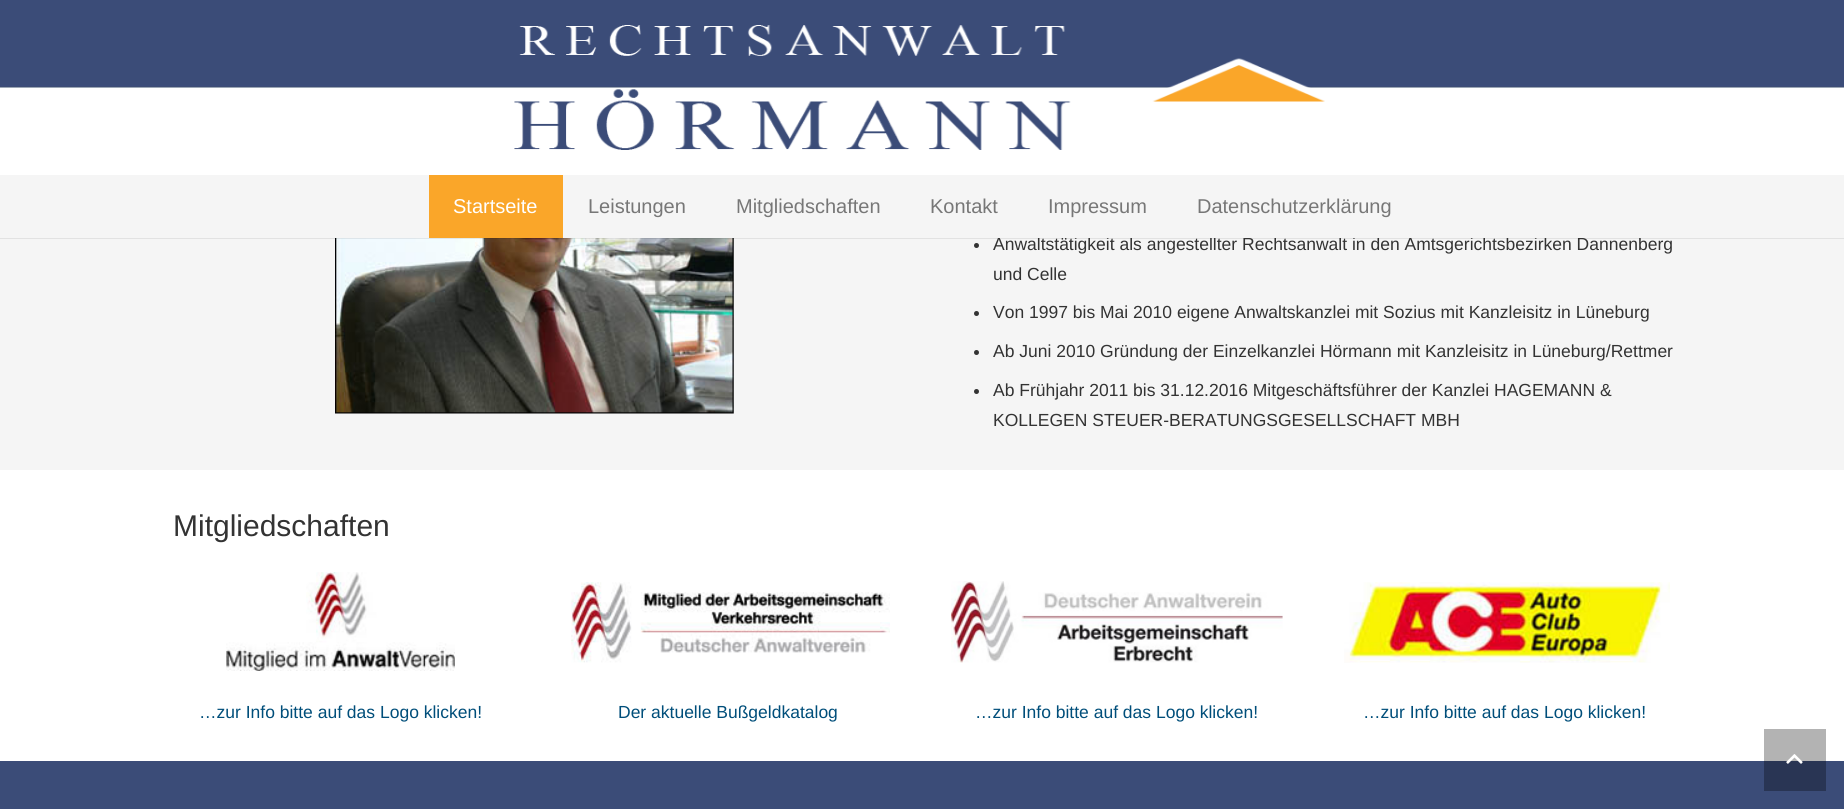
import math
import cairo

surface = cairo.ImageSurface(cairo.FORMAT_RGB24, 1844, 809)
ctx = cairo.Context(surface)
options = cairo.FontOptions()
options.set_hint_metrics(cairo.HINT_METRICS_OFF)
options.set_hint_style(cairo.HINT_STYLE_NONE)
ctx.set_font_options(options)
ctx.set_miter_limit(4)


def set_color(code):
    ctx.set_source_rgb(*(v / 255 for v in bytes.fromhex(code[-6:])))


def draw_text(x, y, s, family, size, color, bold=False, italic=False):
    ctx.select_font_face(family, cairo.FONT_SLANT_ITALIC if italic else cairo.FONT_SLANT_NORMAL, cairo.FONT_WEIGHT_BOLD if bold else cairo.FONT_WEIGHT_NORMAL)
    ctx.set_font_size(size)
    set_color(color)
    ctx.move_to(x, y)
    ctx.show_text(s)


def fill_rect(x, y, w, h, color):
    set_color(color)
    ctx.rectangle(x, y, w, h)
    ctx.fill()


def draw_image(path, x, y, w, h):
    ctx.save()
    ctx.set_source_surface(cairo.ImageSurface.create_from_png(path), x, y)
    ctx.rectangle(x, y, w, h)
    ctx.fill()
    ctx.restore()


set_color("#ffffff")
ctx.paint()
fill_rect(1764, 729, 62, 32, "#b3b3b3")
draw_image("assets/img1.png", 0, 0, 1844, 88)
draw_image("assets/img2.png", 514, 25, 811, 125)
fill_rect(0, 238, 1844, 232, "#f5f5f5")
draw_image("assets/img3.png", 335, 238, 399, 176)
ctx.set_source_rgba(0, 0, 0, 0.08)
ctx.rectangle(0, 238, 1844, 1)
ctx.fill()
draw_text(993, 250, "Anwaltstätigkeit als angestellter Rechtsanwalt in den Amtsgerichtsbezirken Dannenberg", "Liberation Sans", 17.5, "#333333")
fill_rect(0, 175, 1844, 63, "#f5f5f5")
fill_rect(429, 175, 134, 63, "#faa629")
draw_text(453, 213, "Startseite", "Liberation Sans", 20, "#ffffff")
draw_text(588, 213, "Leistungen", "Liberation Sans", 20, "#777777")
draw_text(736, 213, "Mitgliedschaften", "Liberation Sans", 20, "#777777")
draw_text(930, 213, "Kontakt", "Liberation Sans", 20, "#777777")
draw_text(1048, 213, "Impressum", "Liberation Sans", 20, "#777777")
draw_text(1197, 213, "Datenschutzerklärung", "Liberation Sans", 20, "#777777")
set_color("#333333")
ctx.new_path()
ctx.arc(976.5, 245.5, 2.5, 0, 2 * math.pi)
ctx.fill()
draw_text(993, 280, "und Celle", "Liberation Sans", 17.5, "#333333")
ctx.new_path()
ctx.arc(976.5, 313.5, 2.5, 0, 2 * math.pi)
ctx.fill()
draw_text(993, 318, "Von 1997 bis Mai 2010 eigene Anwaltskanzlei mit Sozius mit Kanzleisitz in Lüneburg", "Liberation Sans", 17.5, "#333333")
ctx.new_path()
ctx.arc(976.5, 352.5, 2.5, 0, 2 * math.pi)
ctx.fill()
draw_text(993, 357, "Ab Juni 2010 Gründung der Einzelkanzlei Hörmann mit Kanzleisitz in Lüneburg/Rettmer", "Liberation Sans", 17.5, "#333333")
ctx.new_path()
ctx.arc(976.5, 391.5, 2.5, 0, 2 * math.pi)
ctx.fill()
draw_text(993, 396, "Ab Frühjahr 2011 bis 31.12.2016 Mitgeschäftsführer der Kanzlei HAGEMANN &", "Liberation Sans", 17.5, "#333333")
draw_text(993, 426, "KOLLEGEN STEUER-BERATUNGSGESELLSCHAFT MBH", "Liberation Sans", 17.5, "#333333")
draw_text(173, 536, "Mitgliedschaften", "Liberation Sans", 30, "#333333")
draw_image("assets/img4.png", 226, 572, 229, 99)
draw_text(199, 718, "…zur Info bitte auf das Logo klicken!", "Liberation Sans", 17.5, "#004e7a")
draw_image("assets/img5.png", 571, 582, 319, 81)
draw_text(618, 718, "Der aktuelle Bußgeldkatalog", "Liberation Sans", 17.5, "#004e7a")
draw_image("assets/img6.png", 951, 581, 332, 82)
draw_text(975, 718, "…zur Info bitte auf das Logo klicken!", "Liberation Sans", 17.5, "#004e7a")
draw_image("assets/img7.png", 1344, 582, 326, 81)
draw_text(1363, 718, "…zur Info bitte auf das Logo klicken!", "Liberation Sans", 17.5, "#004e7a")
fill_rect(0, 761, 1844, 48, "#3b4c78")
fill_rect(1764, 761, 62, 30, "#293554")
draw_image("assets/img8.png", 1786, 754, 17, 10)
surface.write_to_png("output.png")
